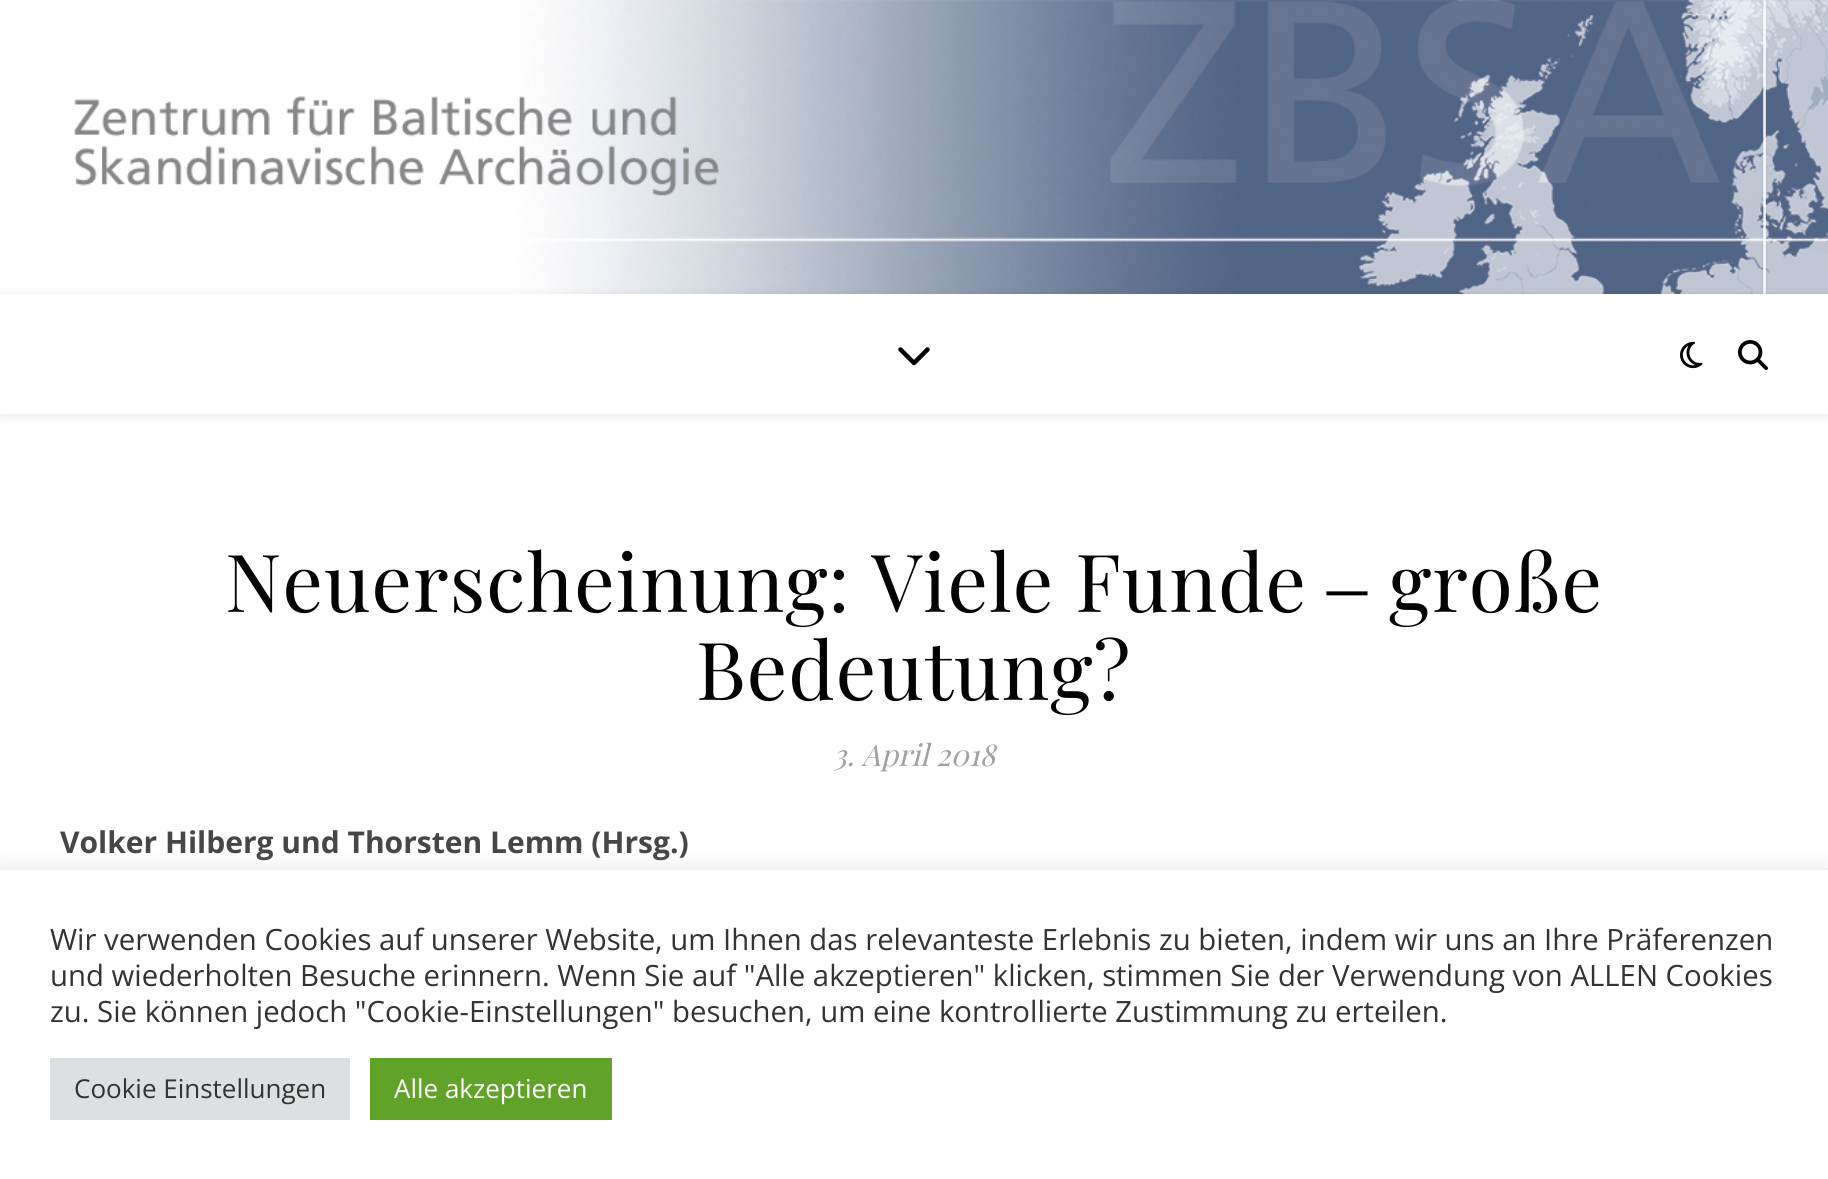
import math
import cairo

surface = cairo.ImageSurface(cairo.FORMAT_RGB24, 1828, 1179)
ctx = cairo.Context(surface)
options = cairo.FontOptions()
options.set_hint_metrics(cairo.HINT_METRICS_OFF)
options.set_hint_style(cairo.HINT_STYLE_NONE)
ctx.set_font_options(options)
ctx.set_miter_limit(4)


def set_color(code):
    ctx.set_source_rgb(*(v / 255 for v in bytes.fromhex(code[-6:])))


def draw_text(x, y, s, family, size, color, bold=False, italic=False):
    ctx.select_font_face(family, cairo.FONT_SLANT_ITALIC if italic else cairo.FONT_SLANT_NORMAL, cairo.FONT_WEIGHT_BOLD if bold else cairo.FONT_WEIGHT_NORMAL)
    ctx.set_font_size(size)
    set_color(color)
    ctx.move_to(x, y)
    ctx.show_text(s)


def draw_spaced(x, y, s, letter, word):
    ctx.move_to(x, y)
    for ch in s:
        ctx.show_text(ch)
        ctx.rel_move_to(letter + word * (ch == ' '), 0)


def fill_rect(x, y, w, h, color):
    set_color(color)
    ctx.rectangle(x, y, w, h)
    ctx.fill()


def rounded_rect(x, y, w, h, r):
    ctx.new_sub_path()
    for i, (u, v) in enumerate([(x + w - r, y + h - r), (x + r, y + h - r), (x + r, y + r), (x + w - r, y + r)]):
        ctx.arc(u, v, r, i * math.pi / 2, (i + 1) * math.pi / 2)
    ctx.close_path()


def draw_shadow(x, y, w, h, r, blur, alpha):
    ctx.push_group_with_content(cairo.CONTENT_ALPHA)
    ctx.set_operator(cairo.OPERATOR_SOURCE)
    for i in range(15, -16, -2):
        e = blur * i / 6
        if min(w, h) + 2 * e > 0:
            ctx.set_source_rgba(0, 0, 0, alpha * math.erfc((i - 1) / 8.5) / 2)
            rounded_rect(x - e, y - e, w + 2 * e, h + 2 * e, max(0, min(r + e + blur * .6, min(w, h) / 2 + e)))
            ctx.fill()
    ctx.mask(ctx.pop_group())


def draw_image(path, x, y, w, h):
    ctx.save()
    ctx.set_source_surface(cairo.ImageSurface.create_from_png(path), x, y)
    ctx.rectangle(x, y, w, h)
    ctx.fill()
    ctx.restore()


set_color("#ffffff")
ctx.paint()
draw_image("assets/img1.png", 74, 0, 1754, 294)
ctx.save()
ctx.set_fill_rule(cairo.FILL_RULE_EVEN_ODD)
ctx.new_path()
ctx.move_to(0, 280)
ctx.line_to(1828, 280)
ctx.line_to(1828, 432)
ctx.line_to(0, 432)
ctx.close_path()
ctx.move_to(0, 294)
ctx.line_to(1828, 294)
ctx.line_to(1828, 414)
ctx.line_to(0, 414)
ctx.close_path()
ctx.clip()
set_color("#000000")
draw_shadow(0, 296, 1828, 120, 0, 5, 0.1)
ctx.restore()
draw_image("assets/img2.png", 898, 347, 32, 19)
draw_image("assets/img3.png", 1680, 341, 23, 28)
draw_image("assets/img4.png", 1738, 340, 30, 30)
ctx.select_font_face("Playfair Display")
ctx.set_font_size(80)
set_color("#030303")
draw_spaced(225, 612, "Neuerscheinung: Viele Funde", 1, 0)
ctx.select_font_face("Liberation Serif")
draw_spaced(1327, 612, "‒", 1, 0)
ctx.select_font_face("Playfair Display")
draw_spaced(1389, 612, "große", 1, 0)
draw_spaced(696, 700, "Bedeutung?", 1, 0)
draw_text(833, 766, "3. April 2018", "Playfair Display", 30, "#a1a1a1", italic=True)
draw_text(60, 853, "Volker Hilberg und Thorsten Lemm (Hrsg.)", "Open Sans", 30, "#464646", bold=True)
set_color("#acabab")
draw_shadow(0, 868, 1828, 310, 0, 10, 0.3)
fill_rect(0, 870, 1828, 309, "#ffffff")
draw_text(50, 950, "Wir verwenden Cookies auf unserer Website, um Ihnen das relevanteste Erlebnis zu bieten, indem wir uns an Ihre Präferenzen", "Open Sans", 29.33, "#333333")
draw_text(50, 986, "und wiederholten Besuche erinnern. Wenn Sie auf \"Alle akzeptieren\" klicken, stimmen Sie der Verwendung von ALLEN Cookies", "Open Sans", 29.33, "#333333")
draw_text(50, 1022, "zu. Sie können jedoch \"Cookie-Einstellungen\" besuchen, um eine kontrollierte Zustimmung zu erteilen.", "Open Sans", 29.33, "#333333")
fill_rect(50, 1058, 300, 62, "#dedfe0")
draw_text(74, 1098, "Cookie Einstellungen", "Open Sans", 26, "#333333")
fill_rect(370, 1058, 242, 62, "#61a229")
draw_text(394, 1098, "Alle akzeptieren", "Open Sans", 26, "#ffffff")
surface.write_to_png("output.png")
